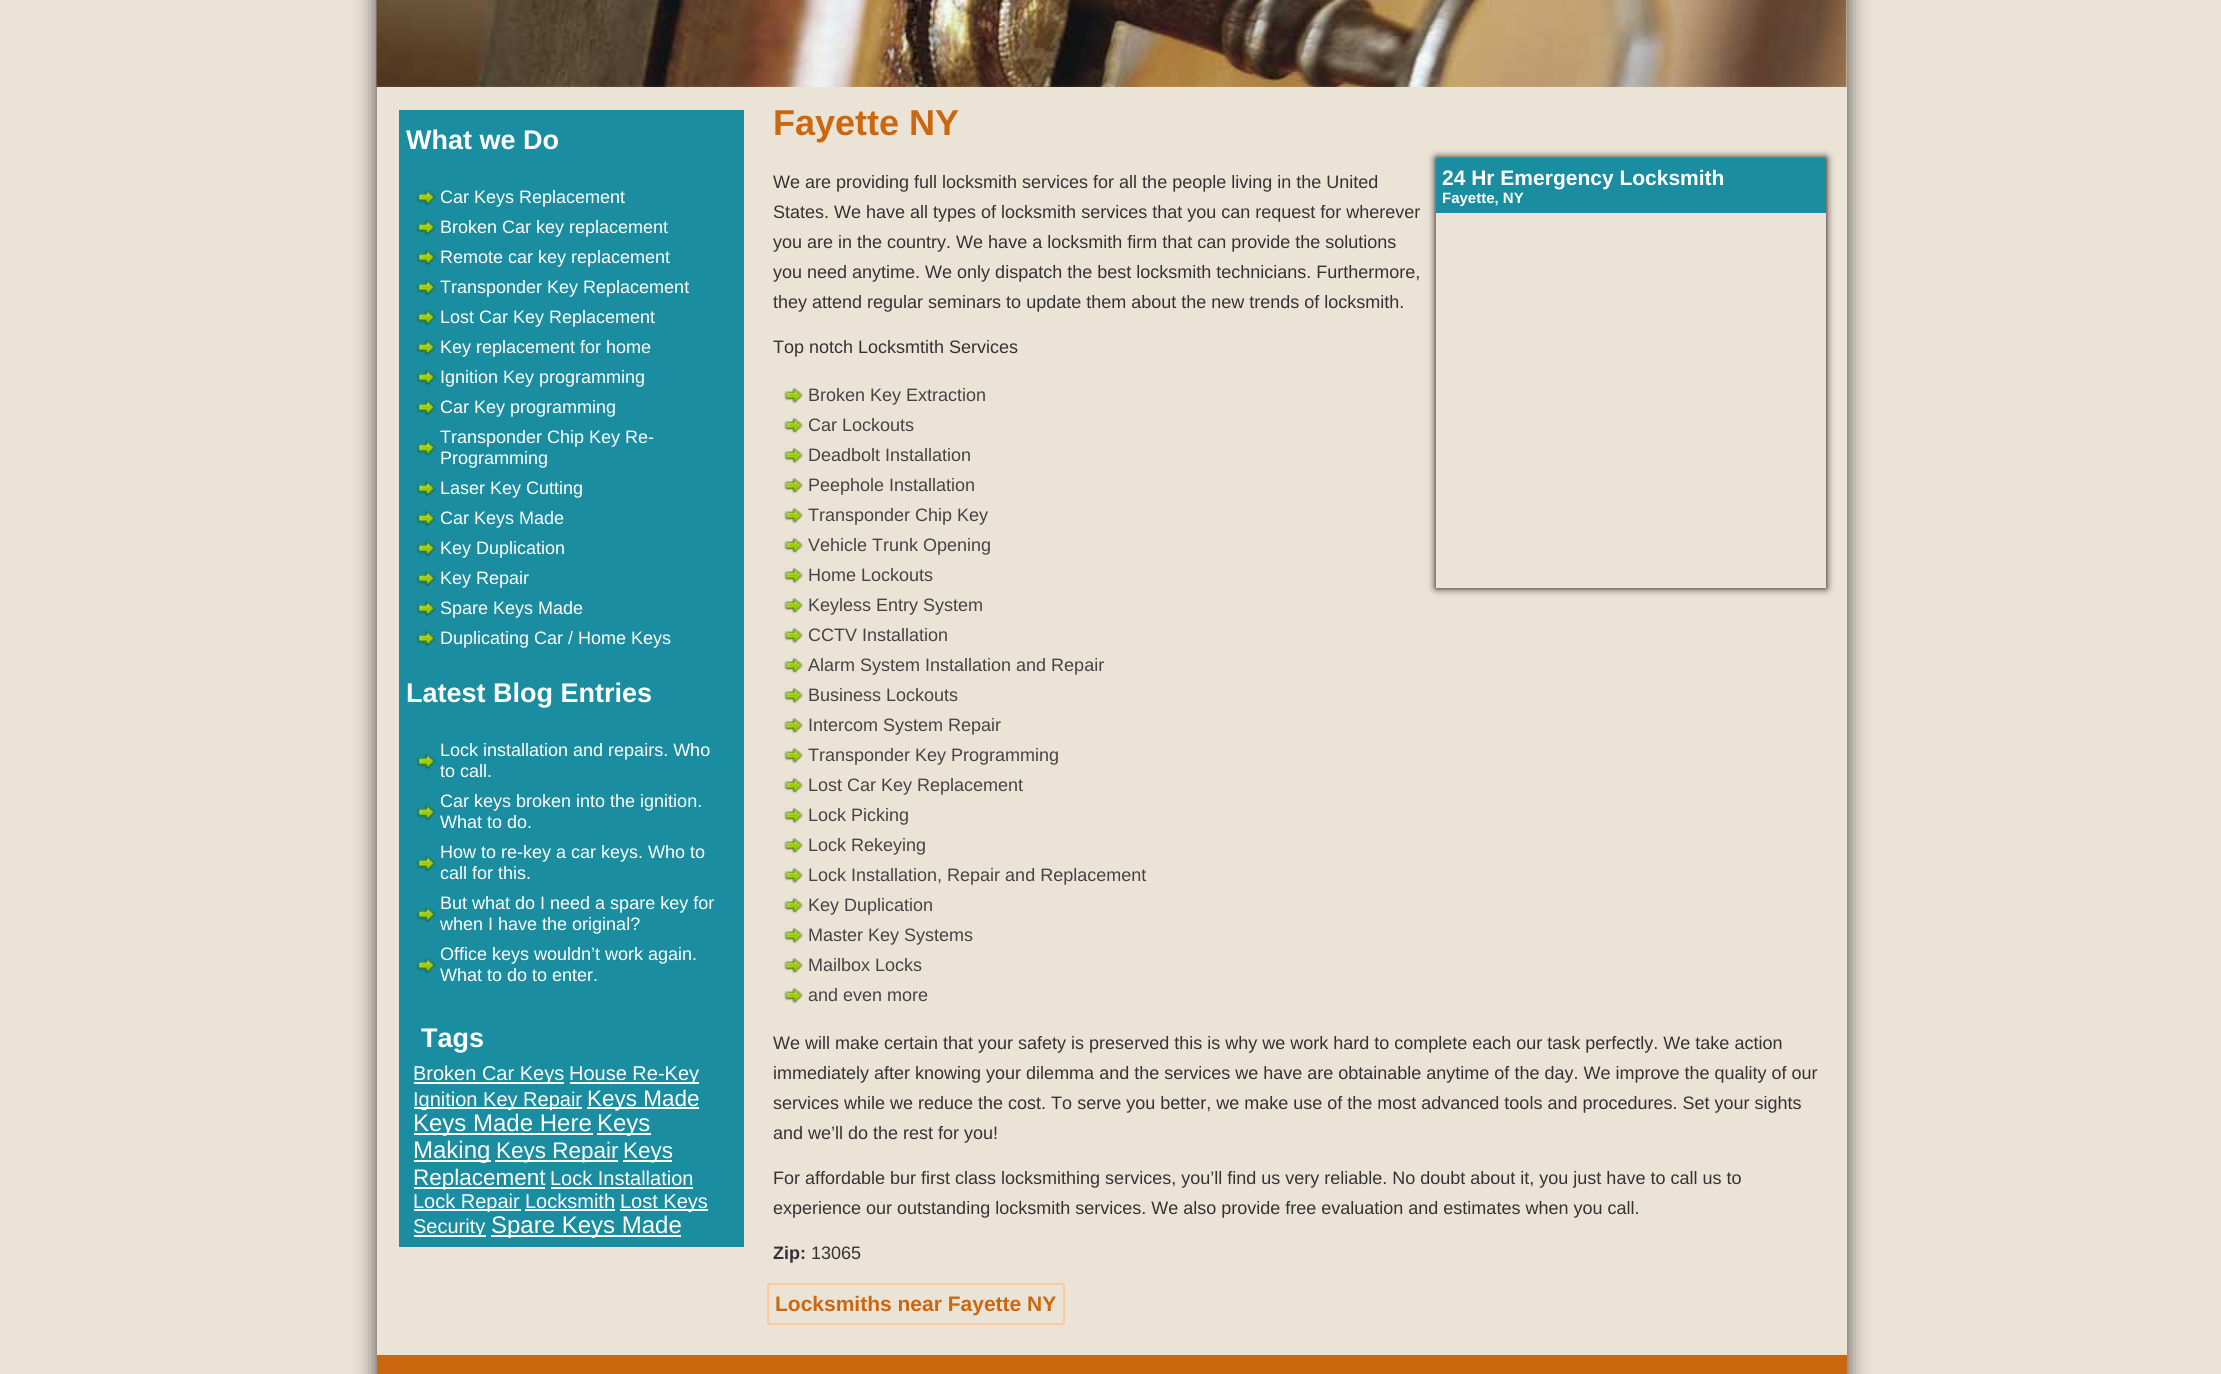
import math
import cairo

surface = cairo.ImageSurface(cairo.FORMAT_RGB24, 2221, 1374)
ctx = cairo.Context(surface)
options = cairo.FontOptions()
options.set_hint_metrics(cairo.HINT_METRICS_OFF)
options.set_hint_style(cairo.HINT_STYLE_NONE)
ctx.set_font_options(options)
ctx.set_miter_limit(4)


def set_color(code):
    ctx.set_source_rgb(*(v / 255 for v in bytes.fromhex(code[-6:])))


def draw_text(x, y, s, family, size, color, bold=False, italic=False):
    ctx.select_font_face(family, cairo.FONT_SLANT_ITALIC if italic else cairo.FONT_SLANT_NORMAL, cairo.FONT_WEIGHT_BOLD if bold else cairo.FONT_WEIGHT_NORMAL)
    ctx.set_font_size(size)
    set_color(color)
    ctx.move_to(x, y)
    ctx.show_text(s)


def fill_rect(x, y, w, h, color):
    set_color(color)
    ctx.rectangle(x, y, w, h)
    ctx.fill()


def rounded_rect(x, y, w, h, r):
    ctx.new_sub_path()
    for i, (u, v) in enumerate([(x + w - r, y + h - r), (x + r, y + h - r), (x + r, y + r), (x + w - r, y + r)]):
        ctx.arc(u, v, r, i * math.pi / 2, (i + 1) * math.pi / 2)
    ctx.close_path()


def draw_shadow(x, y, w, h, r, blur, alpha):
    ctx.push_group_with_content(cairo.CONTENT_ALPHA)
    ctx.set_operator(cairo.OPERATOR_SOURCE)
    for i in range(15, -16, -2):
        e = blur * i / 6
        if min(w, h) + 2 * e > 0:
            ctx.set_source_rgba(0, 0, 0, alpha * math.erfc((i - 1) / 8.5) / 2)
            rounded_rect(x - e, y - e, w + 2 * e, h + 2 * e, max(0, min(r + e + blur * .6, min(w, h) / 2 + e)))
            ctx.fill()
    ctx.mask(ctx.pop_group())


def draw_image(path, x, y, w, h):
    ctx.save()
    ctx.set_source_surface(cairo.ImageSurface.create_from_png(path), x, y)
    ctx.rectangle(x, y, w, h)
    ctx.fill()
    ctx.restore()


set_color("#ece3d7")
ctx.paint()
ctx.save()
ctx.set_fill_rule(cairo.FILL_RULE_EVEN_ODD)
ctx.new_path()
ctx.move_to(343, 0)
ctx.line_to(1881, 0)
ctx.line_to(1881, 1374)
ctx.line_to(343, 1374)
ctx.close_path()
ctx.move_to(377, -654)
ctx.line_to(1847, -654)
ctx.line_to(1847, 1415)
ctx.line_to(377, 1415)
ctx.close_path()
ctx.clip()
set_color("#444444")
draw_shadow(377, -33, 1470, 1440, 0, 11, 1)
ctx.restore()
draw_image("assets/img1.png", 376, 0, 1471, 87)
fill_rect(399, 110, 345, 1137, "#1a8da0")
draw_text(406, 149, "What we Do", "Liberation Sans", 27, "#ffffff", bold=True)
draw_image("assets/img2.png", 417, 190, 19, 16)
draw_text(440, 203, "Car Keys Replacement", "Liberation Sans", 18, "#ffffff")
draw_image("assets/img2.png", 417, 220, 19, 16)
draw_text(440, 233, "Broken Car key replacement", "Liberation Sans", 18, "#ffffff")
draw_image("assets/img2.png", 417, 250, 19, 16)
draw_text(440, 263, "Remote car key replacement", "Liberation Sans", 18, "#ffffff")
draw_image("assets/img2.png", 417, 280, 19, 16)
draw_text(440, 293, "Transponder Key Replacement", "Liberation Sans", 18, "#ffffff")
draw_image("assets/img2.png", 417, 310, 19, 16)
draw_text(440, 323, "Lost Car Key Replacement", "Liberation Sans", 18, "#ffffff")
draw_image("assets/img2.png", 417, 340, 19, 16)
draw_text(440, 353, "Key replacement for home", "Liberation Sans", 18, "#ffffff")
draw_image("assets/img2.png", 417, 370, 19, 16)
draw_text(440, 383, "Ignition Key programming", "Liberation Sans", 18, "#ffffff")
draw_image("assets/img2.png", 417, 400, 19, 16)
draw_text(440, 413, "Car Key programming", "Liberation Sans", 18, "#ffffff")
draw_image("assets/img3.png", 417, 440, 19, 17)
draw_text(440, 443, "Transponder Chip Key Re-", "Liberation Sans", 18, "#ffffff")
draw_text(440, 464, "Programming", "Liberation Sans", 18, "#ffffff")
draw_image("assets/img2.png", 417, 481, 19, 16)
draw_text(440, 494, "Laser Key Cutting", "Liberation Sans", 18, "#ffffff")
draw_image("assets/img2.png", 417, 511, 19, 16)
draw_text(440, 524, "Car Keys Made", "Liberation Sans", 18, "#ffffff")
draw_image("assets/img2.png", 417, 541, 19, 16)
draw_text(440, 554, "Key Duplication", "Liberation Sans", 18, "#ffffff")
draw_image("assets/img2.png", 417, 571, 19, 16)
draw_text(440, 584, "Key Repair", "Liberation Sans", 18, "#ffffff")
draw_image("assets/img2.png", 417, 601, 19, 16)
draw_text(440, 614, "Spare Keys Made", "Liberation Sans", 18, "#ffffff")
draw_image("assets/img2.png", 417, 631, 19, 16)
draw_text(440, 644, "Duplicating Car / Home Keys", "Liberation Sans", 18, "#ffffff")
draw_text(406, 702, "Latest Blog Entries", "Liberation Sans", 27, "#ffffff", bold=True)
draw_image("assets/img2.png", 417, 754, 19, 16)
draw_text(440, 756, "Lock installation and repairs. Who", "Liberation Sans", 18, "#ffffff")
draw_text(440, 777, "to call.", "Liberation Sans", 18, "#ffffff")
draw_image("assets/img2.png", 417, 805, 19, 16)
draw_text(440, 807, "Car keys broken into the ignition.", "Liberation Sans", 18, "#ffffff")
draw_text(440, 828, "What to do.", "Liberation Sans", 18, "#ffffff")
draw_image("assets/img2.png", 417, 856, 19, 16)
draw_text(440, 858, "How to re-key a car keys. Who to", "Liberation Sans", 18, "#ffffff")
draw_text(440, 879, "call for this.", "Liberation Sans", 18, "#ffffff")
draw_image("assets/img2.png", 417, 907, 19, 16)
draw_text(440, 909, "But what do I need a spare key for", "Liberation Sans", 18, "#ffffff")
draw_text(440, 930, "when I have the original?", "Liberation Sans", 18, "#ffffff")
draw_image("assets/img2.png", 417, 958, 19, 16)
draw_text(440, 960, "Office keys wouldn’t work again.", "Liberation Sans", 18, "#ffffff")
draw_text(440, 981, "What to do to enter.", "Liberation Sans", 18, "#ffffff")
draw_text(421, 1047, "Tags", "Liberation Sans", 27, "#ffffff", bold=True)
fill_rect(414, 1082, 150, 2, "#ffffff")
draw_text(413, 1080, "Broken Car Keys", "Liberation Sans", 20, "#ffffff")
fill_rect(570, 1082, 129, 2, "#ffffff")
draw_text(569, 1080, "House Re-Key", "Liberation Sans", 20, "#ffffff")
fill_rect(414, 1107, 168, 2, "#ffffff")
draw_text(413, 1106, "Ignition Key Repair", "Liberation Sans", 20, "#ffffff")
fill_rect(587, 1107, 112, 2, "#ffffff")
draw_text(587, 1106, "Keys Made", "Liberation Sans", 22.5, "#ffffff")
fill_rect(414, 1133, 179, 2, "#ffffff")
draw_text(413, 1131, "Keys Made Here", "Liberation Sans", 24, "#ffffff")
fill_rect(597, 1133, 54, 2, "#ffffff")
draw_text(597, 1131, "Keys", "Liberation Sans", 24, "#ffffff")
fill_rect(414, 1160, 77, 2, "#ffffff")
draw_text(413, 1158, "Making", "Liberation Sans", 24, "#ffffff")
fill_rect(495, 1160, 123, 2, "#ffffff")
draw_text(496, 1158, "Keys Repair", "Liberation Sans", 22.5, "#ffffff")
fill_rect(623, 1160, 49, 2, "#ffffff")
draw_text(623, 1158, "Keys", "Liberation Sans", 22.5, "#ffffff")
fill_rect(414, 1187, 131, 2, "#ffffff")
draw_text(413, 1185, "Replacement", "Liberation Sans", 22.5, "#ffffff")
draw_text(550, 1185, "Lock Installation", "Liberation Sans", 20, "#ffffff")
fill_rect(551, 1187, 142, 2, "#ffffff")
fill_rect(414, 1209, 107, 2, "#ffffff")
draw_text(413, 1208, "Lock Repair", "Liberation Sans", 20, "#ffffff")
draw_text(525, 1208, "Locksmith", "Liberation Sans", 20, "#ffffff")
fill_rect(525, 1209, 90, 2, "#ffffff")
fill_rect(620, 1209, 88, 2, "#ffffff")
draw_text(620, 1208, "Lost Keys", "Liberation Sans", 20, "#ffffff")
fill_rect(414, 1235, 72, 2, "#ffffff")
draw_text(413, 1233, "Security", "Liberation Sans", 20, "#ffffff")
fill_rect(491, 1235, 190, 2, "#ffffff")
draw_text(491, 1233, "Spare Keys Made", "Liberation Sans", 24, "#ffffff")
draw_text(773, 135, "Fayette NY", "Liberation Sans", 36, "#cb670f", bold=True)
draw_text(773, 188, "We are providing full locksmith services for all the people living in the United", "Liberation Sans", 18, "#333333")
draw_text(773, 218, "States. We have all types of locksmith services that you can request for wherever", "Liberation Sans", 18, "#333333")
draw_text(773, 248, "you are in the country. We have a locksmith firm that can provide the solutions", "Liberation Sans", 18, "#333333")
draw_text(773, 278, "you need anytime. We only dispatch the best locksmith technicians. Furthermore,", "Liberation Sans", 18, "#333333")
draw_text(773, 308, "they attend regular seminars to update them about the new trends of locksmith.", "Liberation Sans", 18, "#333333")
ctx.save()
ctx.set_fill_rule(cairo.FILL_RULE_EVEN_ODD)
ctx.new_path()
ctx.move_to(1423, 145)
ctx.line_to(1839, 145)
ctx.line_to(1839, 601)
ctx.line_to(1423, 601)
ctx.close_path()
ctx.move_to(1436, 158)
ctx.line_to(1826, 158)
ctx.line_to(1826, 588)
ctx.line_to(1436, 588)
ctx.close_path()
ctx.clip()
set_color("#000000")
draw_shadow(1436, 158, 390, 430, 0, 4, 1)
ctx.restore()
fill_rect(1436, 158, 390, 55, "#1a8da0")
draw_text(1442, 185, "24 Hr Emergency Locksmith", "Liberation Sans", 21, "#ffffff", bold=True)
draw_text(1442, 203, "Fayette, NY", "Liberation Sans", 15, "#ffffff", bold=True)
draw_text(773, 353, "Top notch Locksmtith Services", "Liberation Sans", 18, "#333333")
draw_image("assets/img4.png", 784, 388, 19, 16)
draw_text(808, 401, "Broken Key Extraction", "Liberation Sans", 18, "#444444")
draw_image("assets/img4.png", 784, 418, 19, 16)
draw_text(808, 431, "Car Lockouts", "Liberation Sans", 18, "#444444")
draw_image("assets/img4.png", 784, 448, 19, 16)
draw_text(808, 461, "Deadbolt Installation", "Liberation Sans", 18, "#444444")
draw_image("assets/img4.png", 784, 478, 19, 16)
draw_text(808, 491, "Peephole Installation", "Liberation Sans", 18, "#444444")
draw_image("assets/img4.png", 784, 508, 19, 16)
draw_text(808, 521, "Transponder Chip Key", "Liberation Sans", 18, "#444444")
draw_image("assets/img4.png", 784, 538, 19, 16)
draw_text(808, 551, "Vehicle Trunk Opening", "Liberation Sans", 18, "#444444")
draw_image("assets/img4.png", 784, 568, 19, 16)
draw_text(808, 581, "Home Lockouts", "Liberation Sans", 18, "#444444")
draw_image("assets/img4.png", 784, 598, 19, 16)
draw_text(808, 611, "Keyless Entry System", "Liberation Sans", 18, "#444444")
draw_image("assets/img4.png", 784, 628, 19, 16)
draw_text(808, 641, "CCTV Installation", "Liberation Sans", 18, "#444444")
draw_image("assets/img4.png", 784, 658, 19, 16)
draw_text(808, 671, "Alarm System Installation and Repair", "Liberation Sans", 18, "#444444")
draw_image("assets/img4.png", 784, 688, 19, 16)
draw_text(808, 701, "Business Lockouts", "Liberation Sans", 18, "#444444")
draw_image("assets/img4.png", 784, 718, 19, 16)
draw_text(808, 731, "Intercom System Repair", "Liberation Sans", 18, "#444444")
draw_image("assets/img4.png", 784, 748, 19, 16)
draw_text(808, 761, "Transponder Key Programming", "Liberation Sans", 18, "#444444")
draw_image("assets/img4.png", 784, 778, 19, 16)
draw_text(808, 791, "Lost Car Key Replacement", "Liberation Sans", 18, "#444444")
draw_image("assets/img4.png", 784, 808, 19, 16)
draw_text(808, 821, "Lock Picking", "Liberation Sans", 18, "#444444")
draw_image("assets/img4.png", 784, 838, 19, 16)
draw_text(808, 851, "Lock Rekeying", "Liberation Sans", 18, "#444444")
draw_image("assets/img4.png", 784, 868, 19, 16)
draw_text(808, 881, "Lock Installation, Repair and Replacement", "Liberation Sans", 18, "#444444")
draw_image("assets/img4.png", 784, 898, 19, 16)
draw_text(808, 911, "Key Duplication", "Liberation Sans", 18, "#444444")
draw_image("assets/img4.png", 784, 928, 19, 16)
draw_text(808, 941, "Master Key Systems", "Liberation Sans", 18, "#444444")
draw_image("assets/img4.png", 784, 958, 19, 16)
draw_text(808, 971, "Mailbox Locks", "Liberation Sans", 18, "#444444")
draw_image("assets/img4.png", 784, 988, 19, 16)
draw_text(808, 1001, "and even more", "Liberation Sans", 18, "#444444")
draw_text(773, 1049, "We will make certain that your safety is preserved this is why we work hard to complete each our task perfectly. We take action", "Liberation Sans", 18, "#333333")
draw_text(773, 1079, "immediately after knowing your dilemma and the services we have are obtainable anytime of the day. We improve the quality of our", "Liberation Sans", 18, "#333333")
draw_text(773, 1109, "services while we reduce the cost. To serve you better, we make use of the most advanced tools and procedures. Set your sights", "Liberation Sans", 18, "#333333")
draw_text(773, 1139, "and we’ll do the rest for you!", "Liberation Sans", 18, "#333333")
draw_text(773, 1184, "For affordable bur first class locksmithing services, you’ll find us very reliable. No doubt about it, you just have to call us to", "Liberation Sans", 18, "#333333")
draw_text(773, 1214, "experience our outstanding locksmith services. We also provide free evaluation and estimates when you call.", "Liberation Sans", 18, "#333333")
draw_text(773, 1259, "Zip:", "Liberation Sans", 18, "#333333", bold=True)
draw_text(811, 1259, "13065", "Liberation Sans", 18, "#333333")
ctx.rectangle(768, 1284, 296, 40)
set_color("#ffc99a")
ctx.stroke()
draw_text(775, 1311, "Locksmiths near Fayette NY", "Liberation Sans", 21, "#cb670f", bold=True)
fill_rect(377, 1355, 1470, 19, "#cb670f")
surface.write_to_png("output.png")
